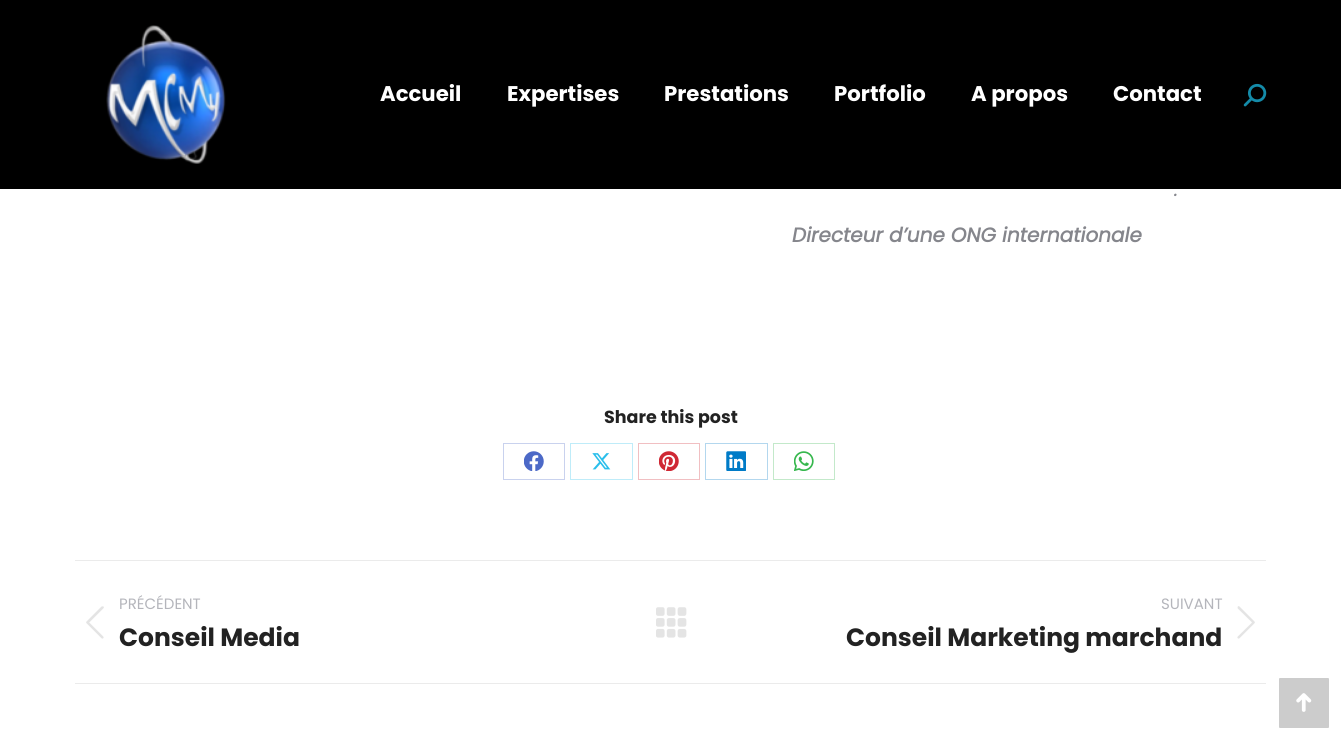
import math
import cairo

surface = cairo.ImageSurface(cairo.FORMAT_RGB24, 1341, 740)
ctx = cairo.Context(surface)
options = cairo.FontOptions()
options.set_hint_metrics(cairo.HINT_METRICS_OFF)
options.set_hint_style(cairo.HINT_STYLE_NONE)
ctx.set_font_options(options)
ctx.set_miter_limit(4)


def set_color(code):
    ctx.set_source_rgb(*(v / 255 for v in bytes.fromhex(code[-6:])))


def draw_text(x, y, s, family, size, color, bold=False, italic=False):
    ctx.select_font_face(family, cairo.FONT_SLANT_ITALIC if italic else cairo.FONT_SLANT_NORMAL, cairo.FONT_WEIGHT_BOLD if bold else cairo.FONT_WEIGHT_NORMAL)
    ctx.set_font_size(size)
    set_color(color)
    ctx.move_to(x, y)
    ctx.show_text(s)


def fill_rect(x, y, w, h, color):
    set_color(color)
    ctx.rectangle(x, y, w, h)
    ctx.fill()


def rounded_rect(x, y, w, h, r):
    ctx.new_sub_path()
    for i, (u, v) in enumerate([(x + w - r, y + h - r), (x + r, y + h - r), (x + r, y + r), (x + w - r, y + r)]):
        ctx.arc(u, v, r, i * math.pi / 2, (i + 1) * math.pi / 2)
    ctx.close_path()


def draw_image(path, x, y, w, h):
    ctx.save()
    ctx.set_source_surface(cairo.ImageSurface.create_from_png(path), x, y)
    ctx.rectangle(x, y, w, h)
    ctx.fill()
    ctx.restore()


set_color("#ffffff")
ctx.paint()
fill_rect(0, 0, 1341, 189, "#000000")
draw_image("assets/img1.png", 106, 25, 120, 139)
draw_text(380, 101, "Accueil", "Poppins", 21.25, "#ffffff", bold=True)
draw_text(507, 101, "Expertises", "Poppins", 21.25, "#ffffff", bold=True)
draw_text(664, 101, "Prestations", "Poppins", 21.25, "#ffffff", bold=True)
draw_text(834, 101, "Portfolio", "Poppins", 21.25, "#ffffff", bold=True)
draw_text(971, 101, "A propos", "Poppins", 21.25, "#ffffff", bold=True)
draw_text(1113, 101, "Contact", "Poppins", 21.25, "#ffffff", bold=True)
draw_image("assets/img2.png", 1243, 83, 24, 24)
draw_text(1174, 196, ".", "Poppins", 20, "#85868c", italic=True)
draw_text(792, 242, "Directeur d’une ONG internationale", "Poppins", 20, "#85868c", bold=True, italic=True)
draw_text(604, 423, "Share this post", "Poppins", 17.5, "#222222", bold=True)
ctx.rectangle(503.5, 443.5, 61, 36)
set_color("#c9d2ee")
ctx.set_line_width(1)
ctx.stroke()
draw_image("assets/img3.png", 524, 451, 20, 20)
ctx.rectangle(570.5, 443.5, 62, 36)
set_color("#bfecf9")
ctx.stroke()
draw_image("assets/img4.png", 592, 453, 19, 17)
ctx.rectangle(638.5, 443.5, 61, 36)
set_color("#f1bfc2")
ctx.stroke()
draw_image("assets/img5.png", 659, 451, 20, 20)
ctx.rectangle(705.5, 443.5, 62, 36)
set_color("#b3d7ee")
ctx.stroke()
draw_image("assets/img6.png", 726, 451, 20, 20)
ctx.rectangle(773.5, 443.5, 61, 36)
set_color("#c3e9ca")
ctx.stroke()
draw_image("assets/img7.png", 794, 451, 20, 20)
fill_rect(75, 560, 1191, 1, "#ebebeb")
fill_rect(75, 683, 1191, 1, "#ebebeb")
draw_text(119, 609, "PRÉCÉDENT", "Poppins", 15, "#b4b5bb")
draw_image("assets/img8.png", 86, 606, 18, 33)
draw_text(119, 646, "Conseil Media", "Poppins", 25, "#222222", bold=True)
draw_image("assets/img9.png", 656, 607, 31, 31)
draw_text(1161, 609, "SUIVANT", "Poppins", 15, "#b4b5bb")
draw_text(846, 646, "Conseil Marketing marchand", "Poppins", 25, "#222222", bold=True)
draw_image("assets/img10.png", 1237, 606, 18, 33)
set_color("#cccccc")
rounded_rect(1279, 678, 50, 50, 1)
ctx.fill()
draw_image("assets/img11.png", 1296, 693, 16, 19)
surface.write_to_png("output.png")
